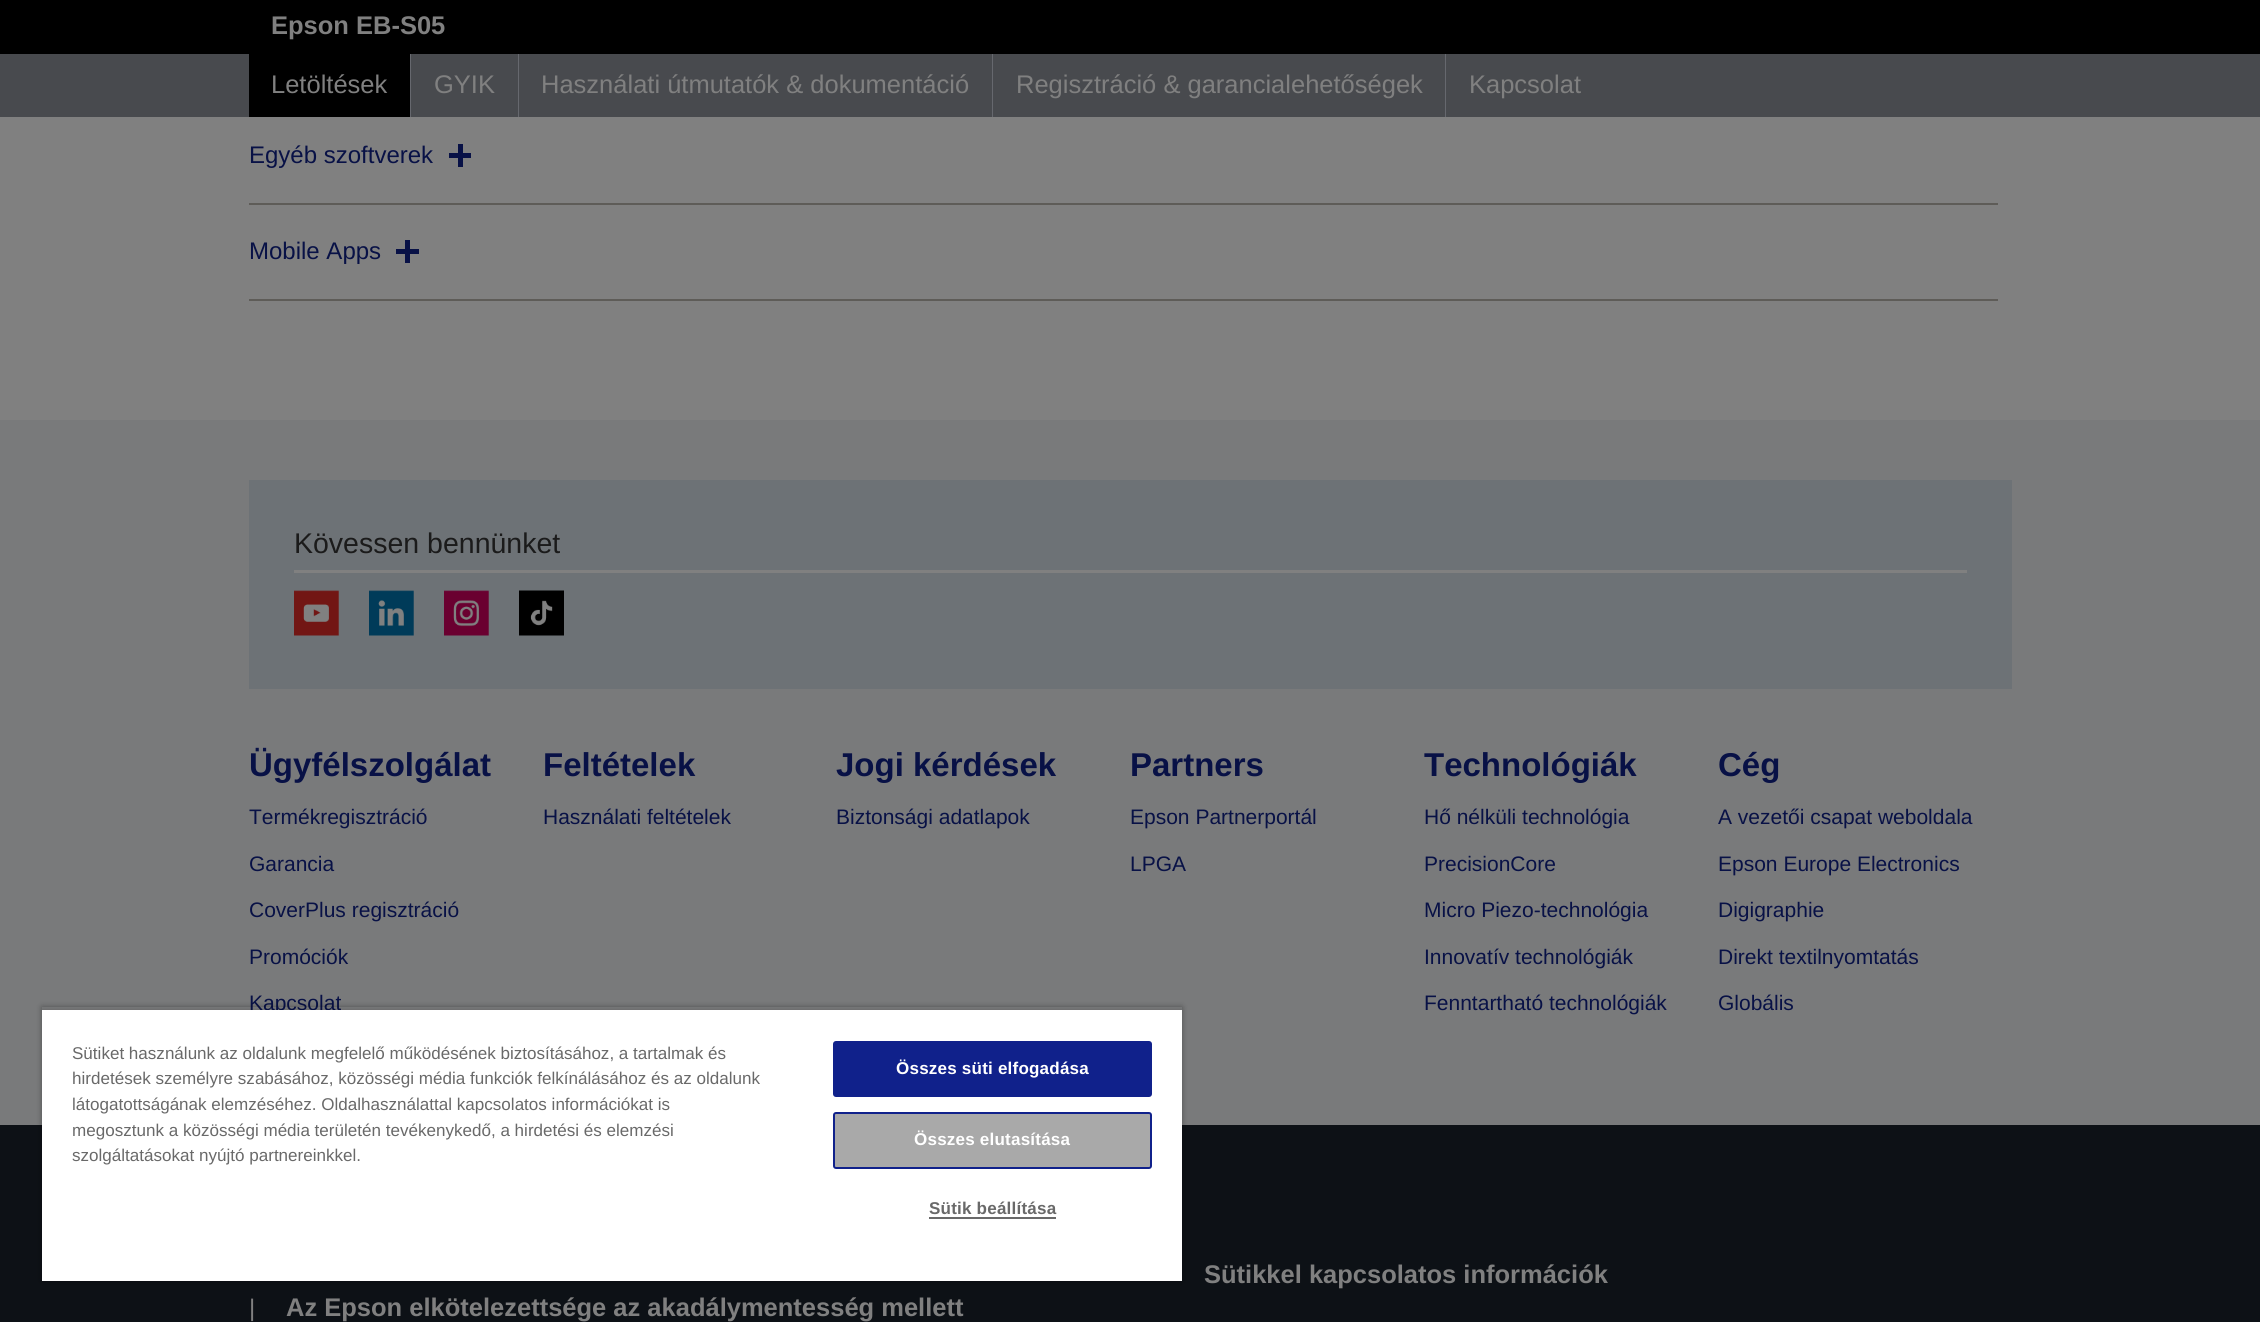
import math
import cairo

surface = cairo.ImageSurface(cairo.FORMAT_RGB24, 2260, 1322)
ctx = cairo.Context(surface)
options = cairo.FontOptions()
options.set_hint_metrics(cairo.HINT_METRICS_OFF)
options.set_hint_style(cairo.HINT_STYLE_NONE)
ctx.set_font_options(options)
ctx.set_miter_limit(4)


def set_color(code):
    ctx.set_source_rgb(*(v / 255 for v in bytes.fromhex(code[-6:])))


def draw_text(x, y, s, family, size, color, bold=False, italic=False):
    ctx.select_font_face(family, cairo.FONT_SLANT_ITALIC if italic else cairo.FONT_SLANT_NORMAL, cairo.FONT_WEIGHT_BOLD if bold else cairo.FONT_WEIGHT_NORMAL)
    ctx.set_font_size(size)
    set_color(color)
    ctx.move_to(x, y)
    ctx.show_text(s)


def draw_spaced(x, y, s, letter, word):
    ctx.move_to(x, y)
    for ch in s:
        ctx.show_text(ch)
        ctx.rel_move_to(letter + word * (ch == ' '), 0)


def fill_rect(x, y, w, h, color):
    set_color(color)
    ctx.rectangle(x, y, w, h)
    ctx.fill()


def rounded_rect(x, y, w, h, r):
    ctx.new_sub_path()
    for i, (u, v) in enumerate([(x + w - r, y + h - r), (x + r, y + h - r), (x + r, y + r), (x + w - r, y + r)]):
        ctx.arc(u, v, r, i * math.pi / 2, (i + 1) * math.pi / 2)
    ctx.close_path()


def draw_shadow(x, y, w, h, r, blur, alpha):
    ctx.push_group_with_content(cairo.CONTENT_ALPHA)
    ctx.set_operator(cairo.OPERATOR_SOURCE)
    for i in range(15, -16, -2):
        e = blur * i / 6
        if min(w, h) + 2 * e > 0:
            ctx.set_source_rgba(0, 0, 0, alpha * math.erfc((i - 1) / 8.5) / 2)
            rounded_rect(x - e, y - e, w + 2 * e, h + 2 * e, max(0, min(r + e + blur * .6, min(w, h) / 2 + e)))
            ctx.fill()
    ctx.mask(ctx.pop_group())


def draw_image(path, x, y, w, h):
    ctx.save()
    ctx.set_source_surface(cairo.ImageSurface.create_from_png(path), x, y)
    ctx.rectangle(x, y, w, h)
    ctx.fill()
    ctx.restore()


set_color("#808080")
ctx.paint()
fill_rect(0, 0, 2260, 54, "#000000")
draw_text(271, 34, "Epson EB-S05", "Liberation Sans", 25.5, "#808080", bold=True)
fill_rect(0, 54, 2260, 63, "#484a4e")
fill_rect(249, 54, 161, 63, "#000000")
fill_rect(410, 54, 1, 63, "#66686e")
draw_text(271, 93, "Letöltések", "Liberation Sans", 25.5, "#808080")
fill_rect(518, 54, 1, 63, "#66686e")
draw_text(434, 93, "GYIK", "Liberation Sans", 25.5, "#808080")
fill_rect(992, 54, 1, 63, "#66686e")
draw_text(541, 93, "Használati útmutatók & dokumentáció", "Liberation Sans", 25.5, "#808080")
fill_rect(1445, 54, 1, 63, "#66686e")
draw_text(1016, 93, "Regisztráció & garancialehetőségek", "Liberation Sans", 25.5, "#808080")
draw_text(1469, 93, "Kapcsolat", "Liberation Sans", 25.5, "#808080")
fill_rect(249, 203, 1749, 2, "#5e5c58")
draw_text(249, 163, "Egyéb szoftverek", "Liberation Sans", 24, "#081146")
fill_rect(458, 144, 5, 23, "#081146")
fill_rect(449, 153, 22, 5, "#081146")
fill_rect(249, 299, 1749, 2, "#5e5c58")
draw_text(249, 259, "Mobile Apps", "Liberation Sans", 24, "#081146")
fill_rect(405, 240, 5, 23, "#081146")
fill_rect(396, 249, 23, 5, "#081146")
fill_rect(0, 420, 2260, 705, "#797a7b")
fill_rect(249, 480, 1763, 209, "#6d7276")
fill_rect(294, 570, 1673, 3, "#808080")
draw_text(294, 553, "Kövessen bennünket", "Liberation Sans", 28.5, "#1b1b1b")
draw_image("assets/img1.png", 294, 590, 45, 46)
draw_image("assets/img2.png", 369, 590, 45, 46)
draw_image("assets/img3.png", 444, 590, 45, 46)
draw_image("assets/img4.png", 519, 590, 45, 46)
draw_text(249, 776, "Ügyfélszolgálat", "Liberation Sans", 33, "#081146", bold=True)
draw_text(249, 824, "Termékregisztráció", "Liberation Sans", 21, "#081146")
draw_text(249, 871, "Garancia", "Liberation Sans", 21, "#081146")
draw_text(249, 917, "CoverPlus regisztráció", "Liberation Sans", 21, "#081146")
draw_text(249, 964, "Promóciók", "Liberation Sans", 21, "#081146")
draw_text(249, 1010, "Kapcsolat", "Liberation Sans", 21, "#081146")
draw_text(543, 776, "Feltételek", "Liberation Sans", 33, "#081146", bold=True)
draw_text(543, 824, "Használati feltételek", "Liberation Sans", 21, "#081146")
draw_text(836, 776, "Jogi kérdések", "Liberation Sans", 33, "#081146", bold=True)
draw_text(836, 824, "Biztonsági adatlapok", "Liberation Sans", 21, "#081146")
draw_text(1130, 776, "Partners", "Liberation Sans", 33, "#081146", bold=True)
draw_text(1130, 824, "Epson Partnerportál", "Liberation Sans", 21, "#081146")
draw_text(1130, 871, "LPGA", "Liberation Sans", 21, "#081146")
draw_text(1424, 776, "Technológiák", "Liberation Sans", 33, "#081146", bold=True)
draw_text(1424, 824, "Hő nélküli technológia", "Liberation Sans", 21, "#081146")
draw_text(1424, 871, "PrecisionCore", "Liberation Sans", 21, "#081146")
draw_text(1424, 917, "Micro Piezo-technológia", "Liberation Sans", 21, "#081146")
draw_text(1424, 964, "Innovatív technológiák", "Liberation Sans", 21, "#081146")
draw_text(1424, 1010, "Fenntartható technológiák", "Liberation Sans", 21, "#081146")
draw_text(1718, 776, "Cég", "Liberation Sans", 33, "#081146", bold=True)
draw_text(1718, 824, "A vezetői csapat weboldala", "Liberation Sans", 21, "#081146")
draw_text(1718, 871, "Epson Europe Electronics", "Liberation Sans", 21, "#081146")
draw_text(1718, 917, "Digigraphie", "Liberation Sans", 21, "#081146")
draw_text(1718, 964, "Direkt textilnyomtatás", "Liberation Sans", 21, "#081146")
draw_text(1718, 1010, "Globális", "Liberation Sans", 21, "#081146")
fill_rect(0, 1125, 2260, 197, "#0d1116")
draw_text(1204, 1283, "Sütikkel kapcsolatos információk", "Liberation Sans", 25.5, "#808080", bold=True)
draw_text(249, 1316, "|", "Liberation Sans", 24, "#808080")
draw_text(286, 1316, "Az Epson elkötelezettsége az akadálymentesség mellett", "Liberation Sans", 25.5, "#808080", bold=True)
ctx.save()
ctx.set_fill_rule(cairo.FILL_RULE_EVEN_ODD)
ctx.new_path()
ctx.move_to(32, 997)
ctx.line_to(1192, 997)
ctx.line_to(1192, 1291)
ctx.line_to(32, 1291)
ctx.close_path()
ctx.move_to(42, 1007)
ctx.line_to(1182, 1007)
ctx.line_to(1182, 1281)
ctx.line_to(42, 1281)
ctx.close_path()
ctx.clip()
set_color("#000000")
draw_shadow(42, 1007, 1140, 274, 0, 3, 0.35)
ctx.restore()
ctx.save()
ctx.rectangle(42, 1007, 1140, 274)
ctx.clip()
set_color("#000000")
draw_shadow(42, 1010, 1140, 271, 0, 3, 0.2)
ctx.restore()
fill_rect(42, 1010, 1140, 271, "#ffffff")
draw_text(72, 1059, "Sütiket használunk az oldalunk megfelelő működésének biztosításához, a tartalmak és", "Liberation Sans", 17.05, "#696969")
draw_text(72, 1084, "hirdetések személyre szabásához, közösségi média funkciók felkínálásához és az oldalunk", "Liberation Sans", 17.05, "#696969")
draw_text(72, 1110, "látogatottságának elemzéséhez. Oldalhasználattal kapcsolatos információkat is", "Liberation Sans", 17.05, "#696969")
draw_text(72, 1136, "megosztunk a közösségi média területén tevékenykedő, a hirdetési és elemzési", "Liberation Sans", 17.05, "#696969")
draw_text(72, 1161, "szolgáltatásokat nyújtó partnereinkkel.", "Liberation Sans", 17.05, "#696969")
set_color("#10218b")
rounded_rect(834, 1042, 317, 54, 2)
ctx.fill_preserve()
ctx.stroke()
ctx.select_font_face("Liberation Sans", cairo.FONT_SLANT_NORMAL, cairo.FONT_WEIGHT_BOLD)
set_color("#ffffff")
draw_spaced(896, 1074, "Összes süti elfogadása", 0.2, 0)
set_color("#a9a9a9")
rounded_rect(834, 1113, 317, 55, 2)
ctx.fill_preserve()
set_color("#10218b")
ctx.stroke()
set_color("#ffffff")
draw_spaced(914, 1145, "Összes elutasítása", 0.2, 0)
set_color("#696969")
draw_spaced(929, 1214, "Sütik beállítása", 0.2, 0)
fill_rect(929, 1217, 127, 2, "#696969")
surface.write_to_png("output.png")
